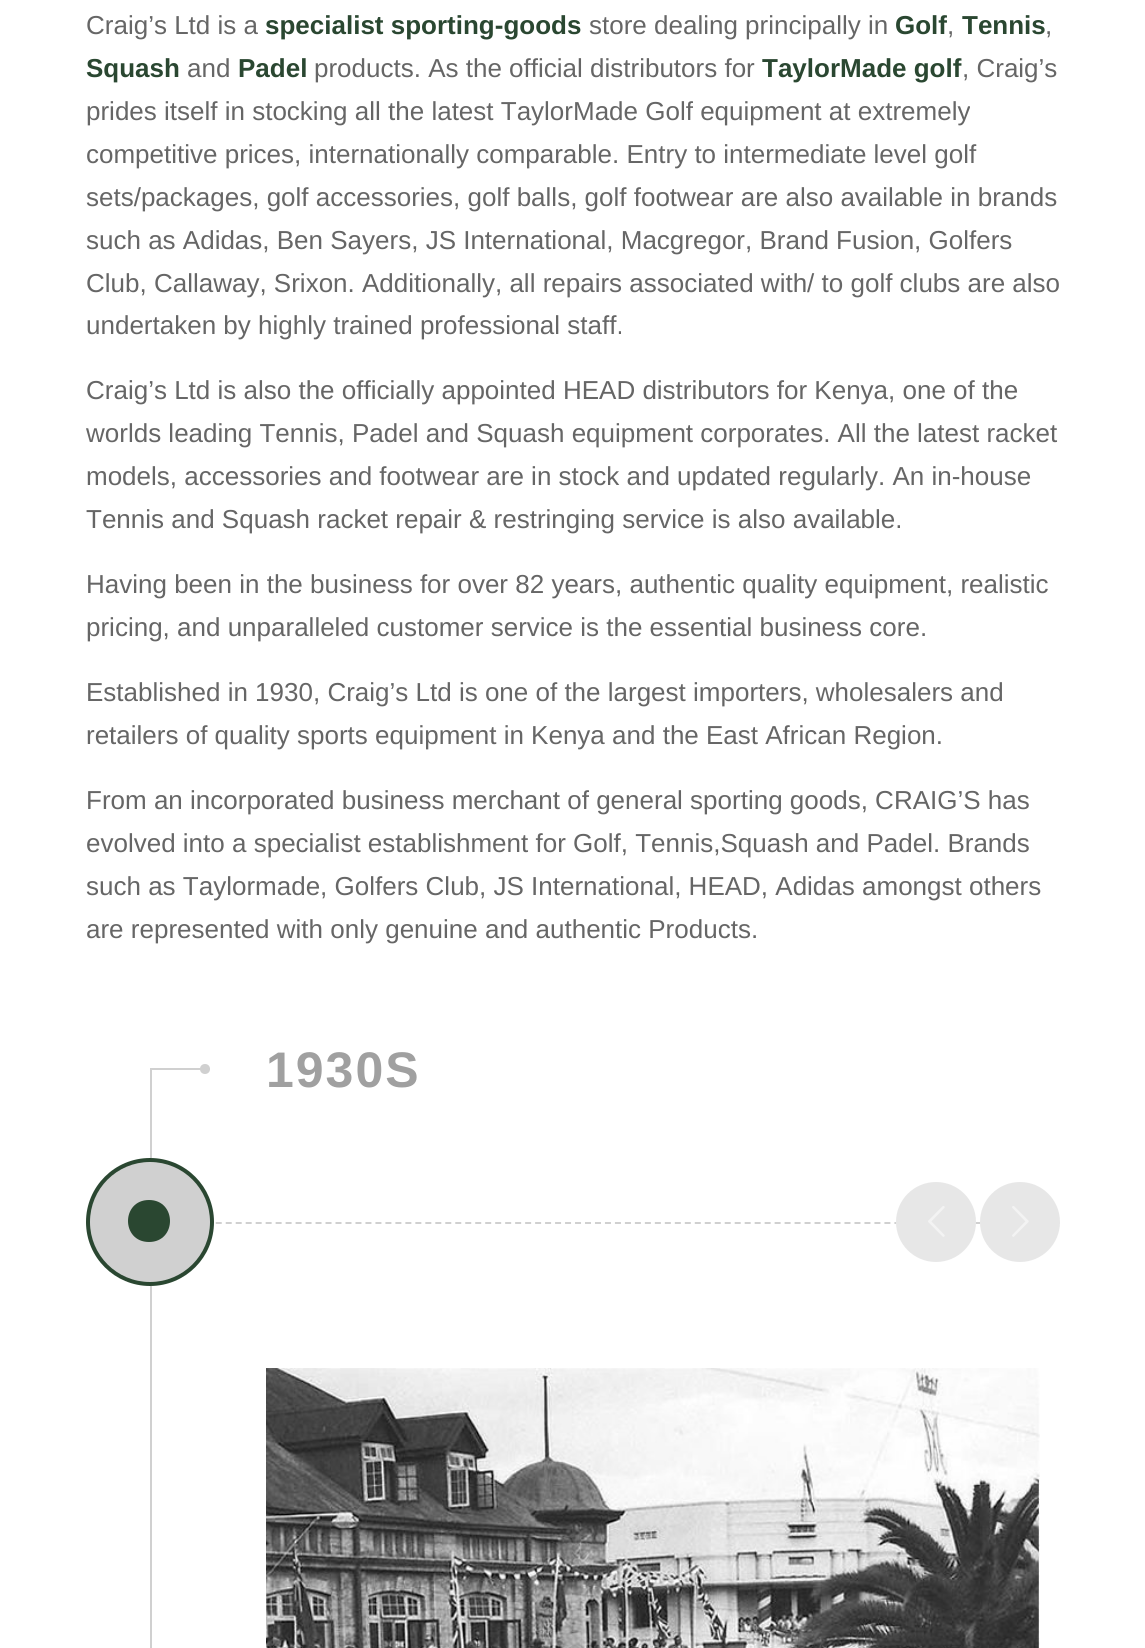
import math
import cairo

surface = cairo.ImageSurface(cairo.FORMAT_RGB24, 1145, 1648)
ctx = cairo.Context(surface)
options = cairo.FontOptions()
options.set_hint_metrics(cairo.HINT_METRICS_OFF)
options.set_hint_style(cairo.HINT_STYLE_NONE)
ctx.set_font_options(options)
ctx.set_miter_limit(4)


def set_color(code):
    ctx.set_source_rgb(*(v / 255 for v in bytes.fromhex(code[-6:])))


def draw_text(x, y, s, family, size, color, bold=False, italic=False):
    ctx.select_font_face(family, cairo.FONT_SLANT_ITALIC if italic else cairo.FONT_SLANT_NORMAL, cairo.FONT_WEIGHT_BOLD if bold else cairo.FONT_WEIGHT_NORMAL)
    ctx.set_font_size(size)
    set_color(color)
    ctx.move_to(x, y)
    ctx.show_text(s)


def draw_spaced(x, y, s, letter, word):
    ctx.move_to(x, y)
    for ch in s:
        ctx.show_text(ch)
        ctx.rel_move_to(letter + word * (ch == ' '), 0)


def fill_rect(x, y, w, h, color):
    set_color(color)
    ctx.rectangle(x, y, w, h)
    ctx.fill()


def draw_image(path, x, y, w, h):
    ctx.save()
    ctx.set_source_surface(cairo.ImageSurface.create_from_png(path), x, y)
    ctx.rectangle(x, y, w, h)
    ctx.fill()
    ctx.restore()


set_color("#ffffff")
ctx.paint()
draw_text(86, 34, "Craig’s Ltd is a", "Liberation Sans", 26, "#666666")
draw_text(265, 34, "specialist sporting-goods", "Liberation Sans", 26, "#2a4731", bold=True)
draw_text(589, 34, "store dealing principally in", "Liberation Sans", 26, "#666666")
draw_text(895, 34, "Golf", "Liberation Sans", 26, "#2a4731", bold=True)
draw_text(947, 34, ",", "Liberation Sans", 26, "#666666")
draw_text(962, 34, "Tennis", "Liberation Sans", 26, "#2a4731", bold=True)
draw_text(1045, 34, ",", "Liberation Sans", 26, "#666666")
draw_text(86, 77, "Squash", "Liberation Sans", 26, "#2a4731", bold=True)
draw_text(187, 77, "and", "Liberation Sans", 26, "#666666")
draw_text(238, 77, "Padel", "Liberation Sans", 26, "#2a4731", bold=True)
draw_text(314, 77, "products. As the official distributors for", "Liberation Sans", 26, "#666666")
draw_text(762, 77, "TaylorMade golf", "Liberation Sans", 26, "#2a4731", bold=True)
draw_text(962, 77, ", Craig’s", "Liberation Sans", 26, "#666666")
draw_text(86, 120, "prides itself in stocking all the latest TaylorMade Golf equipment at extremely", "Liberation Sans", 26, "#666666")
draw_text(86, 163, "competitive prices, internationally comparable. Entry to intermediate level golf", "Liberation Sans", 26, "#666666")
draw_text(86, 206, "sets/packages, golf accessories, golf balls, golf footwear are also available in brands", "Liberation Sans", 26, "#666666")
draw_text(86, 249, "such as Adidas, Ben Sayers, JS International, Macgregor, Brand Fusion, Golfers", "Liberation Sans", 26, "#666666")
draw_text(86, 292, "Club, Callaway, Srixon. Additionally, all repairs associated with/ to golf clubs are also", "Liberation Sans", 26, "#666666")
draw_text(86, 334, "undertaken by highly trained professional staff.", "Liberation Sans", 26, "#666666")
draw_text(86, 399, "Craig’s Ltd is also the officially appointed HEAD distributors for Kenya, one of the", "Liberation Sans", 26, "#666666")
draw_text(86, 442, "worlds leading Tennis, Padel and Squash equipment corporates. All the latest racket", "Liberation Sans", 26, "#666666")
draw_text(86, 485, "models, accessories and footwear are in stock and updated regularly. An in-house", "Liberation Sans", 26, "#666666")
draw_text(86, 528, "Tennis and Squash racket repair & restringing service is also available.", "Liberation Sans", 26, "#666666")
draw_text(86, 593, "Having been in the business for over 82 years, authentic quality equipment, realistic", "Liberation Sans", 26, "#666666")
draw_text(86, 636, "pricing, and unparalleled customer service is the essential business core.", "Liberation Sans", 26, "#666666")
draw_text(86, 701, "Established in 1930, Craig’s Ltd is one of the largest importers, wholesalers and", "Liberation Sans", 26, "#666666")
draw_text(86, 744, "retailers of quality sports equipment in Kenya and the East African Region.", "Liberation Sans", 26, "#666666")
draw_text(86, 809, "From an incorporated business merchant of general sporting goods, CRAIG’S has", "Liberation Sans", 26, "#666666")
draw_text(86, 852, "evolved into a specialist establishment for Golf, Tennis,Squash and Padel. Brands", "Liberation Sans", 26, "#666666")
draw_text(86, 895, "such as Taylormade, Golfers Club, JS International, HEAD, Adidas amongst others", "Liberation Sans", 26, "#666666")
draw_text(86, 938, "are represented with only genuine and authentic Products.", "Liberation Sans", 26, "#666666")
fill_rect(150, 1068, 60, 2, "#d0d0d0")
fill_rect(150, 1068, 2, 90, "#d0d0d0")
ctx.new_path()
ctx.arc(205, 1069, 5, 0, 2 * math.pi)
ctx.fill()
ctx.select_font_face("Liberation Sans", cairo.FONT_SLANT_NORMAL, cairo.FONT_WEIGHT_BOLD)
ctx.set_font_size(50)
set_color("#a0a0a0")
draw_spaced(266, 1087, "1930S", 2, 0)
ctx.new_path()
ctx.move_to(86, 1223)
ctx.line_to(1060, 1223)
set_color("#d0d0d0")
ctx.set_dash([6, 3.98])
ctx.stroke()
set_color("#2a4731")
ctx.arc(150, 1222, 64, 0, 2 * math.pi)
ctx.fill()
set_color("#d0d0d0")
ctx.arc(150, 1222, 60, 0, 2 * math.pi)
ctx.fill()
set_color("#2a4731")
ctx.new_path()
ctx.move_to(149, 1200)
ctx.curve_to(177, 1200, 177, 1242, 149, 1242)
ctx.curve_to(121, 1242, 121, 1200, 149, 1200)
ctx.close_path()
ctx.fill()
fill_rect(150, 1286, 2, 362, "#d0d0d0")
draw_image("assets/img1.png", 266, 1368, 774, 280)
set_color("#ffffff")
ctx.arc(936, 1222, 40, 0, 2 * math.pi)
ctx.fill()
ctx.set_source_rgba(0.816, 0.816, 0.816, 0.5)
ctx.arc(936, 1222, 40, 0, 2 * math.pi)
ctx.fill()
draw_image("assets/img2.png", 928, 1206, 17, 31)
set_color("#ffffff")
ctx.arc(1020, 1222, 40, 0, 2 * math.pi)
ctx.fill()
ctx.set_source_rgba(0.816, 0.816, 0.816, 0.5)
ctx.arc(1020, 1222, 40, 0, 2 * math.pi)
ctx.fill()
draw_image("assets/img3.png", 1012, 1206, 17, 31)
surface.write_to_png("output.png")
